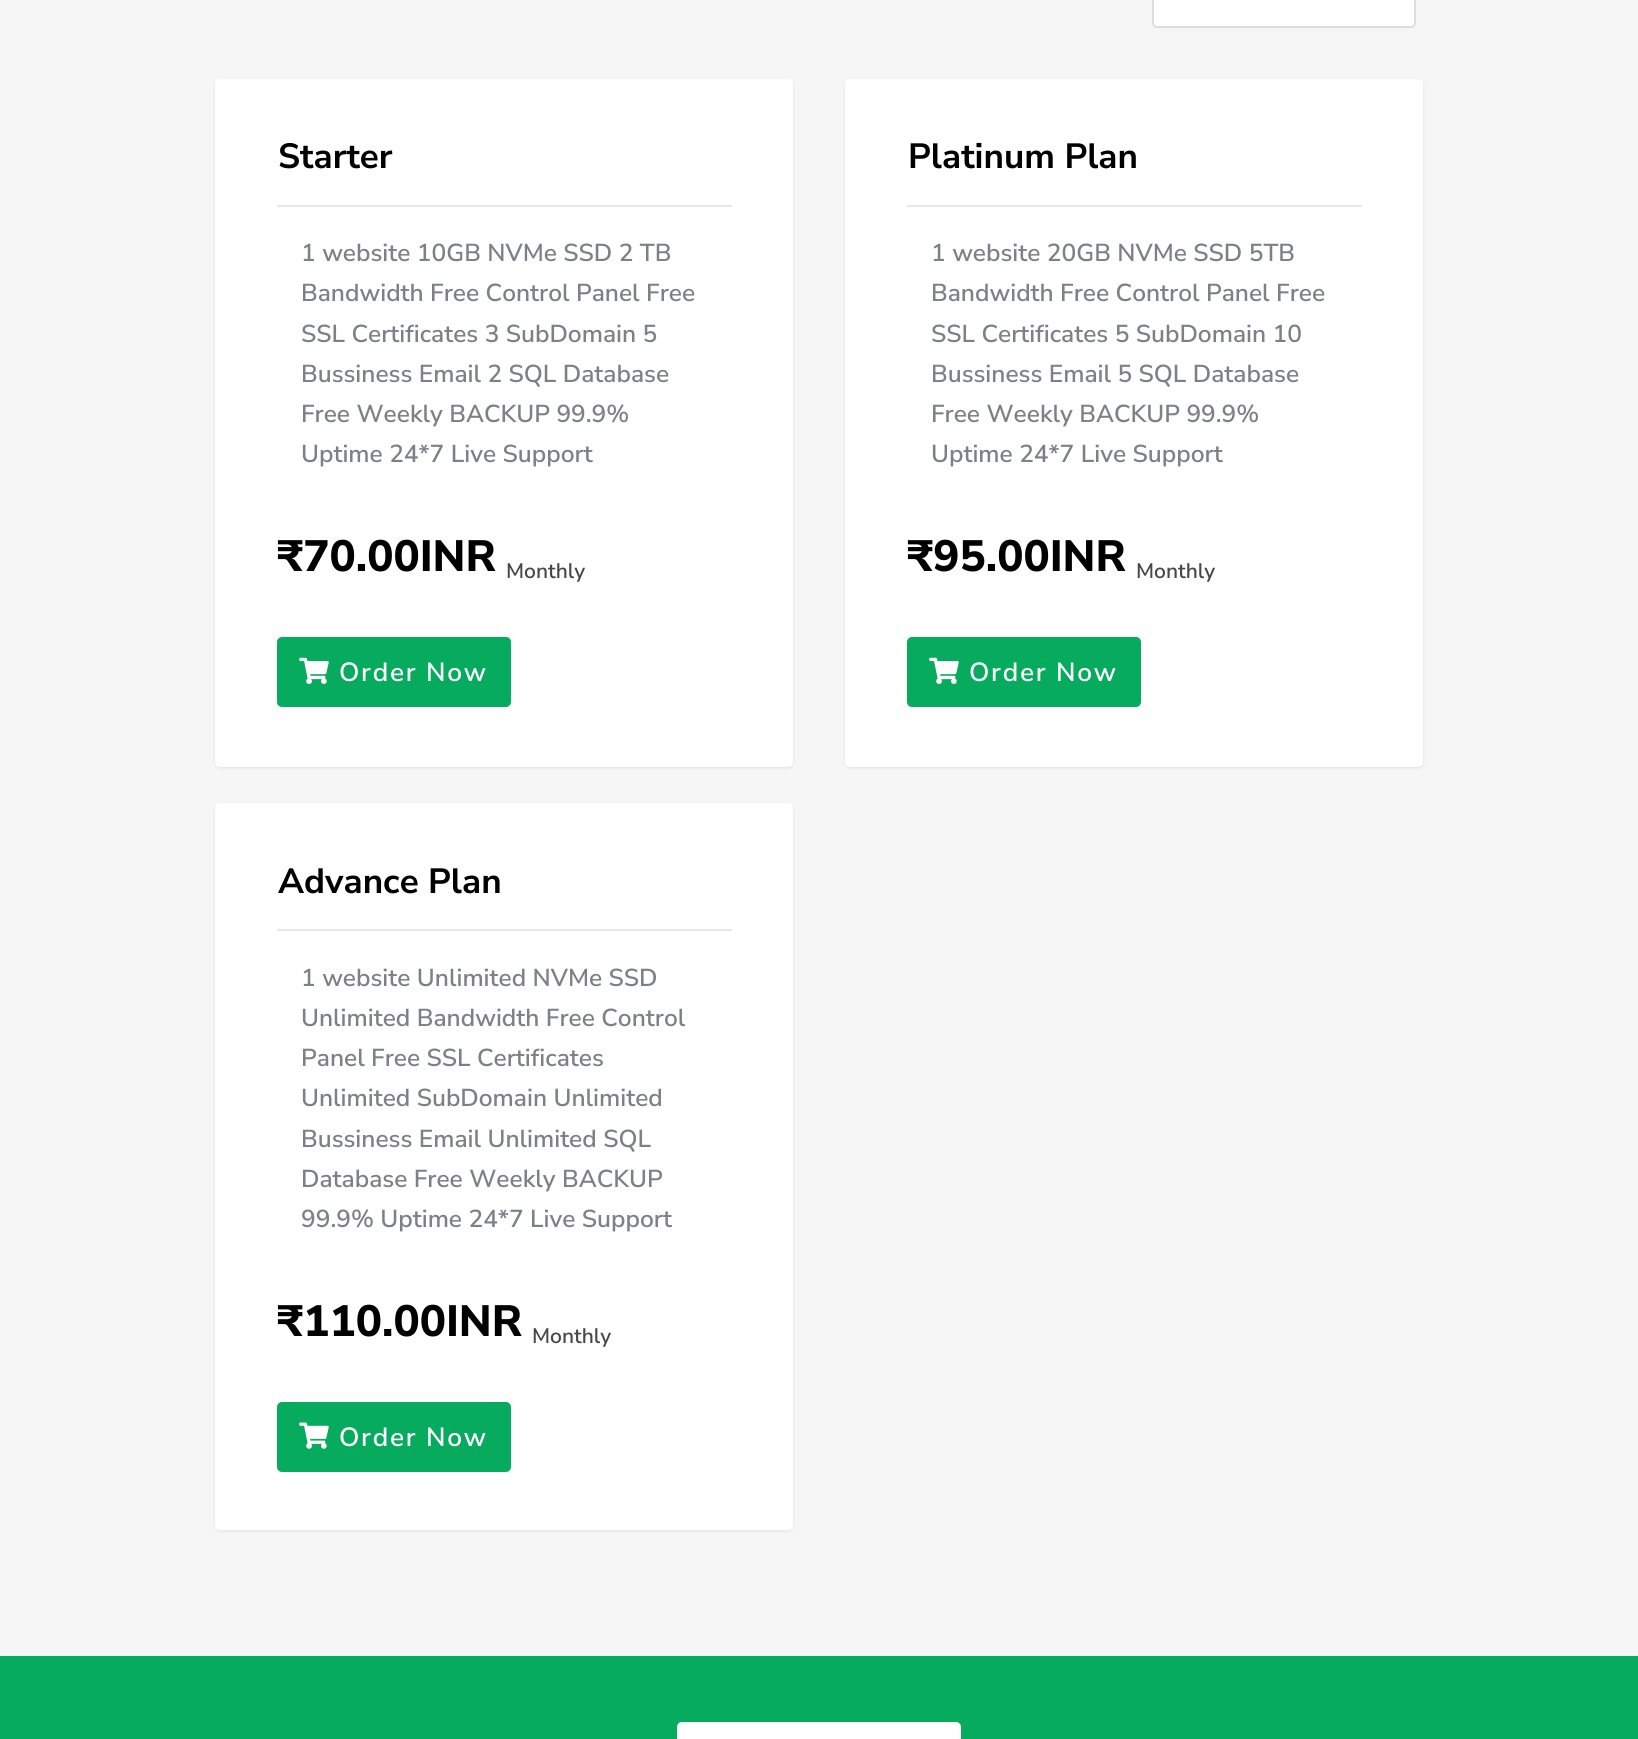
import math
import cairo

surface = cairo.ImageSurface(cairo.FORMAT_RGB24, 1638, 1739)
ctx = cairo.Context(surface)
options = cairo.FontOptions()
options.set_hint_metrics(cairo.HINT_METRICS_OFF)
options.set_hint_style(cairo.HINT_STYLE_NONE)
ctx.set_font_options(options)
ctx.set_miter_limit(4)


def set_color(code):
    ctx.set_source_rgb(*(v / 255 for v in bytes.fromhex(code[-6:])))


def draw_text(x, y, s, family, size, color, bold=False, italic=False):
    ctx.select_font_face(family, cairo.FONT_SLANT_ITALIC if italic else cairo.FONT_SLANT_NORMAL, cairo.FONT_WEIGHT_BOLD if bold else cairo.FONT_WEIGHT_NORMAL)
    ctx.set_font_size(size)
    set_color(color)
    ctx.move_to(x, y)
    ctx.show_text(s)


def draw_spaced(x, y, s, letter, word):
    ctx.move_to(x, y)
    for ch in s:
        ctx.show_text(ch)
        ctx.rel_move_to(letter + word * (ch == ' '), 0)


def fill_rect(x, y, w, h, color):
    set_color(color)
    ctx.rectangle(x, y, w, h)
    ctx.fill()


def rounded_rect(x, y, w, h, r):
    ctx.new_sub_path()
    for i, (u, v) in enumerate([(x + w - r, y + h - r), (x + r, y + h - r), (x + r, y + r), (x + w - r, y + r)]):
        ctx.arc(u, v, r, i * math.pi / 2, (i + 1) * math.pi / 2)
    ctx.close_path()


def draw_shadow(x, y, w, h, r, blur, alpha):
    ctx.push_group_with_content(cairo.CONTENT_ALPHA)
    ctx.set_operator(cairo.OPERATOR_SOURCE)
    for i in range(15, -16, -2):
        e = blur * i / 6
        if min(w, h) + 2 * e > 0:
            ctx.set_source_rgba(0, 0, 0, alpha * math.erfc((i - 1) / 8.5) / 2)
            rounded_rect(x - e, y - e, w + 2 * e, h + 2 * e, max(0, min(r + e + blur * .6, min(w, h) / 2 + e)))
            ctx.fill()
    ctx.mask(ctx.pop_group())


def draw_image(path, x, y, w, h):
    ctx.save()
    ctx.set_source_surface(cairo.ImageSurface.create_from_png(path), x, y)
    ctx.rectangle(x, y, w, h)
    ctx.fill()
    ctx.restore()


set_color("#f6f6f6")
ctx.paint()
set_color("#ffffff")
rounded_rect(1153, -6, 262, 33, 4)
ctx.fill_preserve()
set_color("#dddddd")
ctx.stroke()
set_color("#2a2e36")
draw_shadow(215, 81, 578, 687, 5, 1.5, 0.11)
set_color("#ffffff")
rounded_rect(215, 79, 578, 688, 5)
ctx.fill()
draw_text(278, 168, "Starter", "Nunito Sans", 35, "#000000", bold=True)
fill_rect(277, 205, 455, 2, "#e7e7e7")
draw_text(301, 261, "1 website 10GB NVMe SSD 2 TB", "Nunito Sans SemiBold", 24.5, "#7c8088")
draw_text(301, 301, "Bandwidth Free Control Panel Free", "Nunito Sans SemiBold", 24.5, "#7c8088")
draw_text(301, 342, "SSL Certificates 3 SubDomain 5", "Nunito Sans SemiBold", 24.5, "#7c8088")
draw_text(301, 382, "Bussiness Email 2 SQL Database", "Nunito Sans SemiBold", 24.5, "#7c8088")
draw_text(301, 422, "Free Weekly BACKUP 99.9%", "Nunito Sans SemiBold", 24.5, "#7c8088")
draw_text(301, 462, "Uptime 24*7 Live Support", "Nunito Sans SemiBold", 24.5, "#7c8088")
draw_text(277, 571, "₹70.00INR", "Nunito Sans ExtraBold", 43.75, "#000000")
draw_text(506, 578, "Monthly", "Nunito Sans SemiBold", 21, "#474747")
set_color("#06ab5e")
rounded_rect(278, 638, 232, 68, 4)
ctx.fill_preserve()
ctx.stroke()
draw_image("assets/img1.png", 299, 657, 30, 27)
ctx.set_font_size(26.25)
set_color("#ffffff")
draw_spaced(339, 681, "Order Now", 1.75, 0)
set_color("#2a2e36")
draw_shadow(845, 81, 578, 687, 5, 1.5, 0.11)
set_color("#ffffff")
rounded_rect(845, 79, 578, 688, 5)
ctx.fill()
draw_text(908, 168, "Platinum Plan", "Nunito Sans", 35, "#000000", bold=True)
fill_rect(907, 205, 455, 2, "#e7e7e7")
draw_text(931, 261, "1 website 20GB NVMe SSD 5TB", "Nunito Sans SemiBold", 24.5, "#7c8088")
draw_text(931, 301, "Bandwidth Free Control Panel Free", "Nunito Sans SemiBold", 24.5, "#7c8088")
draw_text(931, 342, "SSL Certificates 5 SubDomain 10", "Nunito Sans SemiBold", 24.5, "#7c8088")
draw_text(931, 382, "Bussiness Email 5 SQL Database", "Nunito Sans SemiBold", 24.5, "#7c8088")
draw_text(931, 422, "Free Weekly BACKUP 99.9%", "Nunito Sans SemiBold", 24.5, "#7c8088")
draw_text(931, 462, "Uptime 24*7 Live Support", "Nunito Sans SemiBold", 24.5, "#7c8088")
draw_text(907, 571, "₹95.00INR", "Nunito Sans ExtraBold", 43.75, "#000000")
draw_text(1136, 578, "Monthly", "Nunito Sans SemiBold", 21, "#474747")
set_color("#06ab5e")
rounded_rect(908, 638, 232, 68, 4)
ctx.fill_preserve()
ctx.stroke()
draw_image("assets/img1.png", 929, 657, 30, 27)
ctx.set_font_size(26.25)
set_color("#ffffff")
draw_spaced(969, 681, "Order Now", 1.75, 0)
set_color("#2a2e36")
draw_shadow(215, 805, 578, 726, 5, 1.5, 0.11)
set_color("#ffffff")
rounded_rect(215, 803, 578, 727, 5)
ctx.fill()
draw_text(278, 893, "Advance Plan", "Nunito Sans", 35, "#000000", bold=True)
fill_rect(277, 929, 455, 2, "#e7e7e7")
draw_text(301, 986, "1 website Unlimited NVMe SSD", "Nunito Sans SemiBold", 24.5, "#7c8088")
draw_text(301, 1026, "Unlimited Bandwidth Free Control", "Nunito Sans SemiBold", 24.5, "#7c8088")
draw_text(301, 1066, "Panel Free SSL Certificates", "Nunito Sans SemiBold", 24.5, "#7c8088")
draw_text(301, 1106, "Unlimited SubDomain Unlimited", "Nunito Sans SemiBold", 24.5, "#7c8088")
draw_text(301, 1147, "Bussiness Email Unlimited SQL", "Nunito Sans SemiBold", 24.5, "#7c8088")
draw_text(301, 1187, "Database Free Weekly BACKUP", "Nunito Sans SemiBold", 24.5, "#7c8088")
draw_text(301, 1227, "99.9% Uptime 24*7 Live Support", "Nunito Sans SemiBold", 24.5, "#7c8088")
draw_text(277, 1336, "₹110.00INR", "Nunito Sans ExtraBold", 43.75, "#000000")
draw_text(532, 1343, "Monthly", "Nunito Sans SemiBold", 21, "#474747")
set_color("#06ab5e")
rounded_rect(278, 1403, 232, 68, 4)
ctx.fill_preserve()
ctx.stroke()
draw_image("assets/img2.png", 299, 1422, 30, 27)
ctx.set_font_size(26.25)
set_color("#ffffff")
draw_spaced(339, 1446, "Order Now", 1.75, 0)
fill_rect(0, 1656, 1638, 83, "#06ab5e")
set_color("#ffffff")
rounded_rect(677, 1722, 284, 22, 5)
ctx.fill()
surface.write_to_png("output.png")
